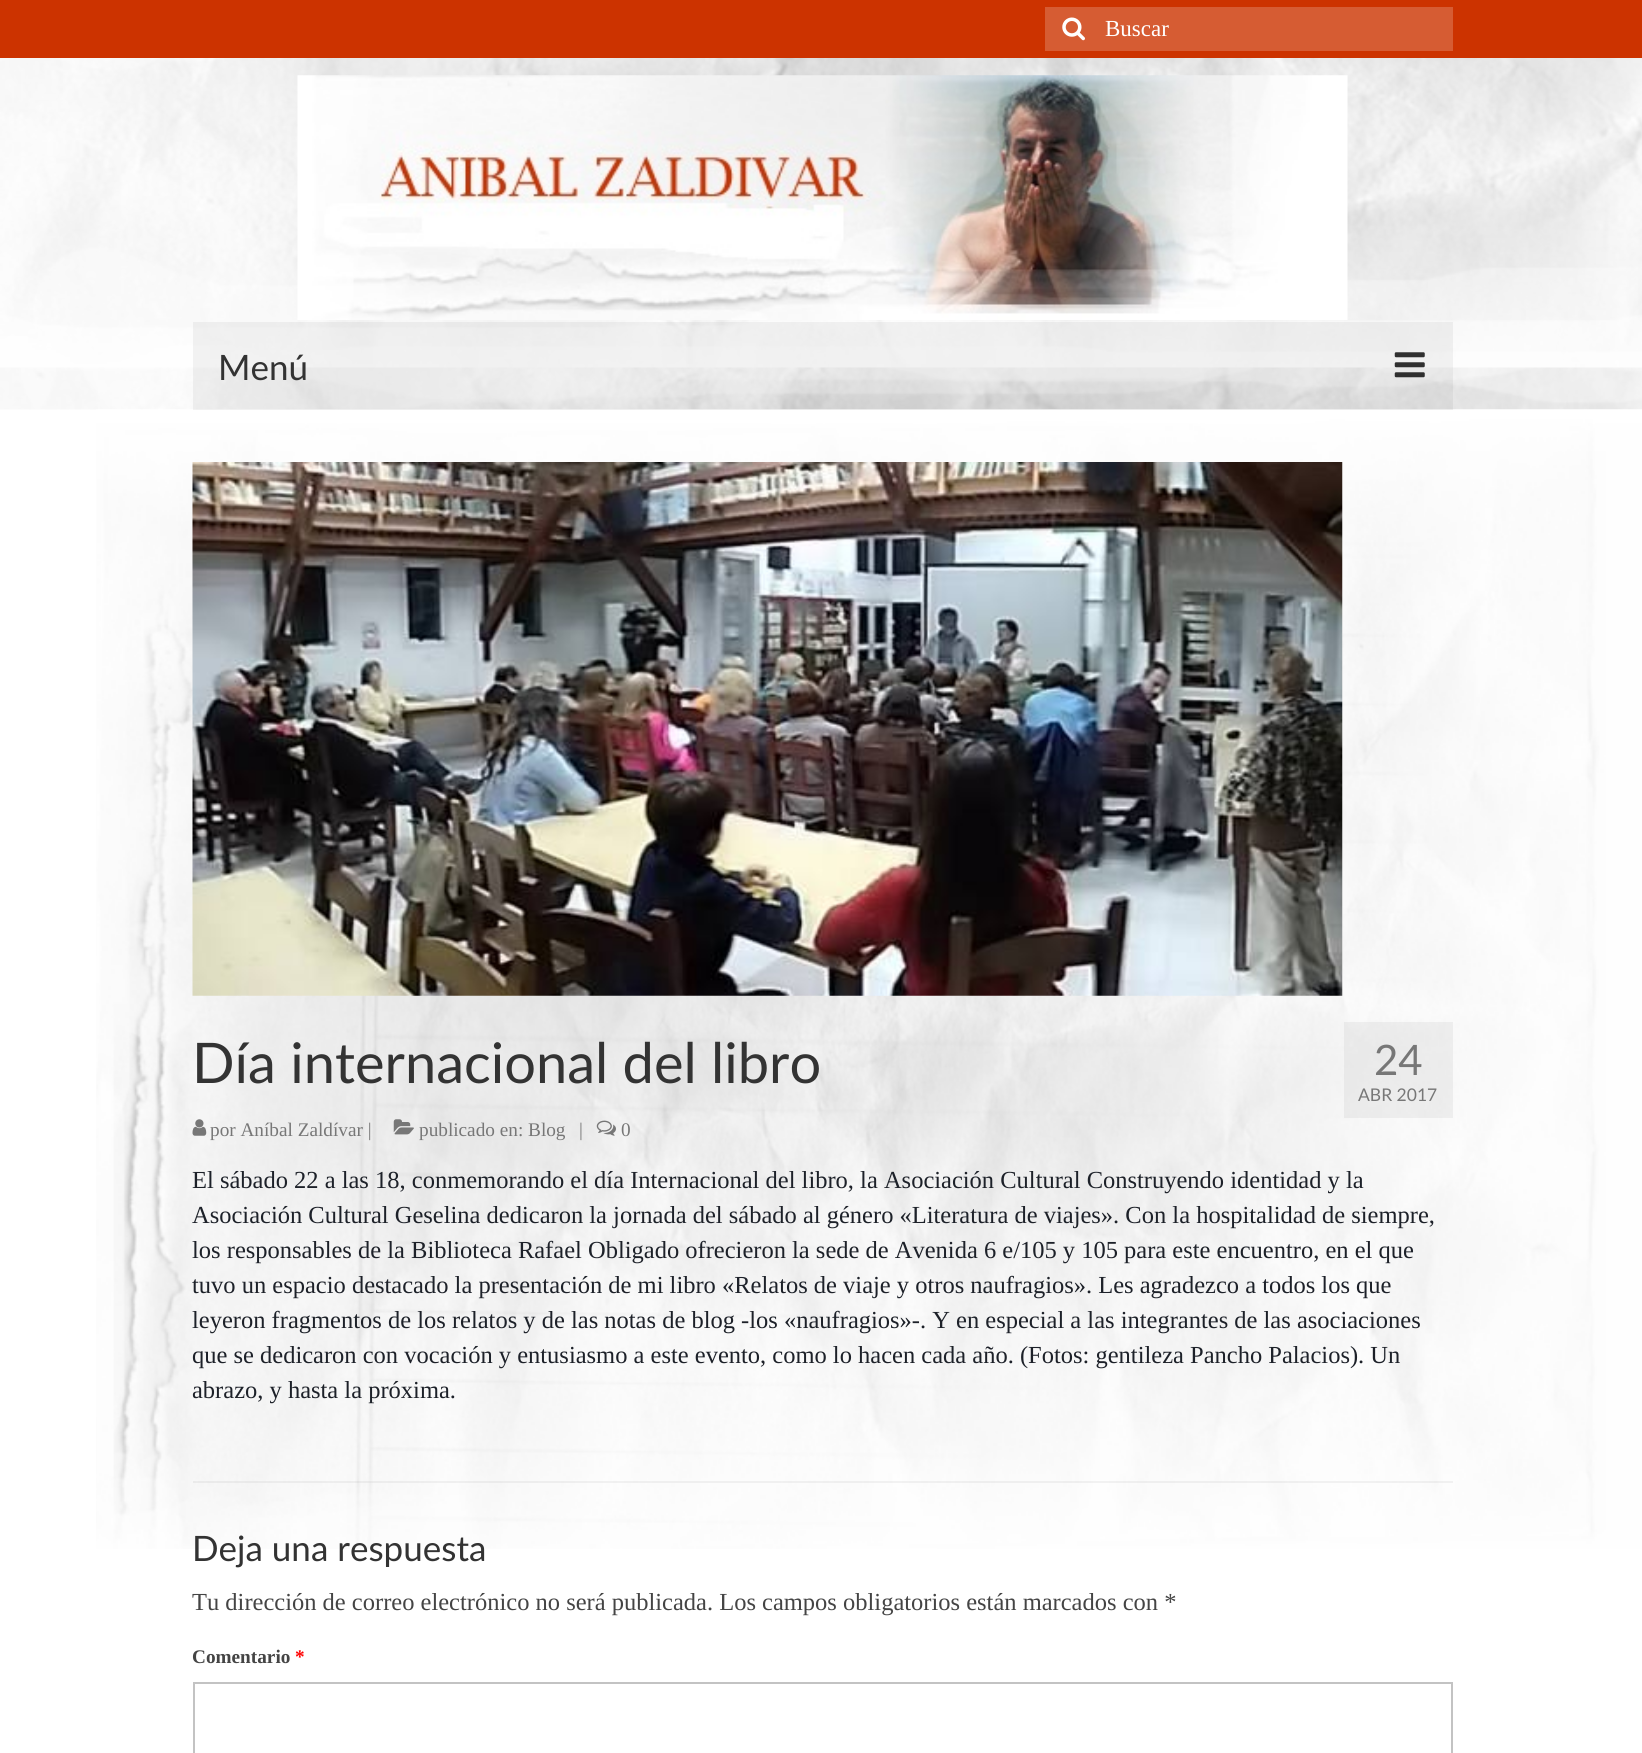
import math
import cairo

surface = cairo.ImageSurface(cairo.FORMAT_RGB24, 1642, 1753)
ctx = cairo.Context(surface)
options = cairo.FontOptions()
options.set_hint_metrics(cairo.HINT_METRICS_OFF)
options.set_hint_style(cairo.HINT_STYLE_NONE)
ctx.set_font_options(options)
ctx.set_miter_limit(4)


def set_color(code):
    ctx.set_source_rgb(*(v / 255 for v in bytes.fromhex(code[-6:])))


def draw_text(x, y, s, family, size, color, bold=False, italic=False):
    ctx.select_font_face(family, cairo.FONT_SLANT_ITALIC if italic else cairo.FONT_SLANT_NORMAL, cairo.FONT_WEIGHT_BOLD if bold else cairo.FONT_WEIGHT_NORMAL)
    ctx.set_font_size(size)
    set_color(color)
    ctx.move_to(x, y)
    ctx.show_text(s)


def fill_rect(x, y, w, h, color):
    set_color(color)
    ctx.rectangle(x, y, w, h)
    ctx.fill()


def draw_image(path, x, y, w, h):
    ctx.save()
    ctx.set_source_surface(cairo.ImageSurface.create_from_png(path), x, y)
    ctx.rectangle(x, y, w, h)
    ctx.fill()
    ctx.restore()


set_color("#ffffff")
ctx.paint()
draw_image("assets/img1.png", 0, 58, 1642, 352)
fill_rect(0, 0, 1642, 58, "#cc3300")
fill_rect(1045, 7, 408, 44, "#d65c33")
draw_image("assets/img2.png", 1062, 17, 23, 24)
draw_text(1105, 36, "Buscar", "Liberation Serif", 23, "#ffffff")
draw_image("assets/img3.png", 297, 75, 1051, 245)
draw_image("assets/img5.png", 96, 409, 1546, 1140)
ctx.set_source_rgba(0, 0, 0, 0.05)
ctx.rectangle(193, 322, 1260, 88)
ctx.fill()
draw_text(218, 380, "Menú", "Lato", 35, "#333333")
draw_image("assets/img4.png", 1394, 352, 31, 26)
draw_image("assets/img6.png", 192, 462, 1151, 534)
draw_text(192, 1083, "Día internacional del libro", "Lato", 56, "#333333")
draw_image("assets/img7.png", 192, 1119, 15, 17)
draw_text(210, 1136, "por Aníbal Zaldívar |", "Liberation Serif", 19.25, "#777777")
draw_image("assets/img8.png", 393, 1119, 21, 16)
draw_text(419, 1136, "publicado en: Blog", "Liberation Serif", 19.25, "#777777")
draw_text(579, 1136, "|", "Liberation Serif", 19.25, "#777777")
draw_image("assets/img9.png", 596, 1120, 20, 16)
draw_text(621, 1136, "0", "Liberation Serif", 19.25, "#777777")
ctx.set_source_rgba(0, 0, 0, 0.05)
ctx.rectangle(1344, 1022, 109, 96)
ctx.fill()
draw_text(1374, 1075, "24", "Lato", 42, "#777777")
draw_text(1358, 1101, "ABR 2017", "Lato", 17.5, "#777777")
draw_text(192, 1188, "El sábado 22 a las 18, conmemorando el día Internacional del libro, la Asociación Cultural Construyendo identidad y la", "Liberation Serif", 24.5, "#1d2129")
draw_text(192, 1223, "Asociación Cultural Geselina dedicaron la jornada del sábado al género «Literatura de viajes». Con la hospitalidad de siempre,", "Liberation Serif", 24.5, "#1d2129")
draw_text(192, 1258, "los responsables de la Biblioteca Rafael Obligado ofrecieron la sede de Avenida 6 e/105 y 105 para este encuentro, en el que", "Liberation Serif", 24.5, "#1d2129")
draw_text(192, 1293, "tuvo un espacio destacado la presentación de mi libro «Relatos de viaje y otros naufragios». Les agradezco a todos los que", "Liberation Serif", 24.5, "#1d2129")
draw_text(192, 1328, "leyeron fragmentos de los relatos y de las notas de blog -los «naufragios»-. Y en especial a las integrantes de las asociaciones", "Liberation Serif", 24.5, "#1d2129")
draw_text(192, 1363, "que se dedicaron con vocación y entusiasmo a este evento, como lo hacen cada año. (Fotos: gentileza Pancho Palacios). Un", "Liberation Serif", 24.5, "#1d2129")
draw_text(192, 1398, "abrazo, y hasta la próxima.", "Liberation Serif", 24.5, "#1d2129")
ctx.set_source_rgba(0, 0, 0, 0.05)
ctx.rectangle(193, 1481, 1260, 2)
ctx.fill()
draw_text(192, 1561, "Deja una respuesta", "Lato", 35, "#333333")
draw_text(192, 1610, "Tu dirección de correo electrónico no será publicada. Los campos obligatorios están marcados con *", "Liberation Serif", 24.5, "#444444")
draw_text(192, 1663, "Comentario", "Liberation Serif", 19.25, "#444444", bold=True)
draw_text(295, 1663, "*", "Liberation Serif", 19.25, "#ff0000", bold=True)
ctx.rectangle(194, 1683, 1258, 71)
set_color("#c3c3c3")
ctx.stroke()
surface.write_to_png("output.png")
